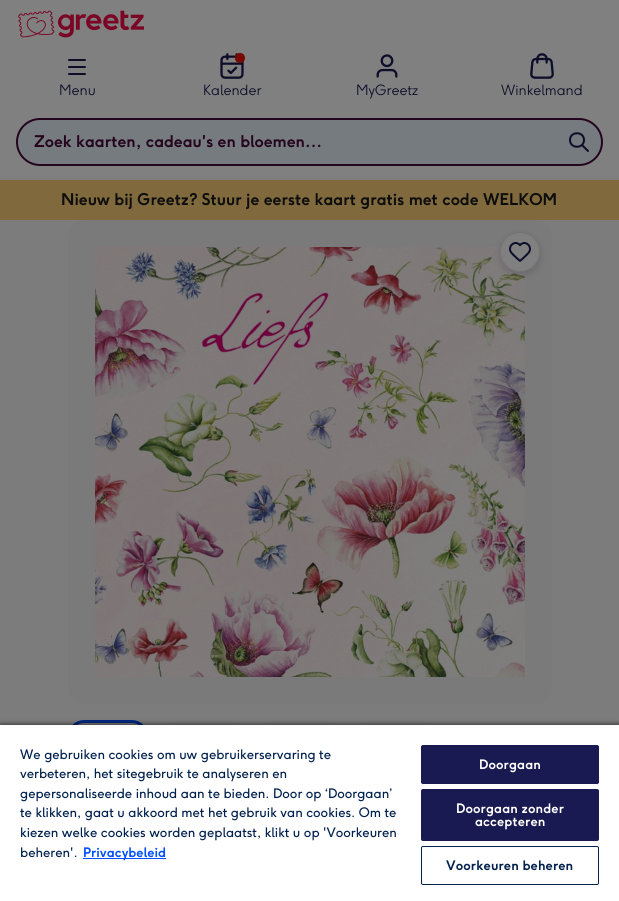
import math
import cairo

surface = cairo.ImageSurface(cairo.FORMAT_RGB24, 619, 901)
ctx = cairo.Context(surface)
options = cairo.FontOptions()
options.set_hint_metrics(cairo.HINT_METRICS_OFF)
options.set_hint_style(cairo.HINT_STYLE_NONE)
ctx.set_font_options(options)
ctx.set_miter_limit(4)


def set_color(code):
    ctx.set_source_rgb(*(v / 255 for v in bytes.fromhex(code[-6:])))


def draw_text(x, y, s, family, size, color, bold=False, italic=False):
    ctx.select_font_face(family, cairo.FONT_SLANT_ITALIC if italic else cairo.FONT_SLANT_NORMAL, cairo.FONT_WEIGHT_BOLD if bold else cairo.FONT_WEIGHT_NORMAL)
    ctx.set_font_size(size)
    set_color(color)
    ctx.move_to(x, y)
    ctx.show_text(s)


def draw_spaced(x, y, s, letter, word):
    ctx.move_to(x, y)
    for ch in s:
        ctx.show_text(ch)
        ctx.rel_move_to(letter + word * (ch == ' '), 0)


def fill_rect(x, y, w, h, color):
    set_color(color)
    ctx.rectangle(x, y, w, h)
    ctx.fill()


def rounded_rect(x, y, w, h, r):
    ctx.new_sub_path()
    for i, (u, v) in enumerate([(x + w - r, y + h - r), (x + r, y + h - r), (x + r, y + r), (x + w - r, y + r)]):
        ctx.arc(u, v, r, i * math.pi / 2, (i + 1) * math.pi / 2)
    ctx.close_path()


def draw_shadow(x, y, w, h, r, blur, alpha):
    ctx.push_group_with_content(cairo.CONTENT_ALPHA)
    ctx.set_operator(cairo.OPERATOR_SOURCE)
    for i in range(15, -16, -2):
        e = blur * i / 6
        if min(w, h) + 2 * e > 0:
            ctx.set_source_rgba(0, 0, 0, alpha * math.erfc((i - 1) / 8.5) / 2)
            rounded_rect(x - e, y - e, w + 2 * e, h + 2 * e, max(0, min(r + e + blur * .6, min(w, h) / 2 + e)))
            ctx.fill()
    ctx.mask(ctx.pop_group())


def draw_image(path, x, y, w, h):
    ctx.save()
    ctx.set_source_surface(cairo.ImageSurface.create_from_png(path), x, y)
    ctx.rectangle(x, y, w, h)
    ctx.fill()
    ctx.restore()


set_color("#7c7c7d")
ctx.paint()
fill_rect(0, 0, 619, 178, "#808080")
draw_image("assets/img1.png", 18, 10, 126, 28)
set_color("#0d0d29")
rounded_rect(68, 59, 18, 2, 1)
ctx.fill()
rounded_rect(68, 66, 18, 2, 1)
ctx.fill()
rounded_rect(68, 73, 18, 2, 1)
ctx.fill()
draw_text(59, 95, "Menu", "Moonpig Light", 14, "#0d0d29")
draw_image("assets/img2.png", 220, 53, 24, 26)
set_color("#760800")
ctx.arc(240, 58, 5, 0, 2 * math.pi)
ctx.fill()
draw_text(203, 95, "Kalender", "Moonpig Light", 14, "#0d0d29")
draw_image("assets/img3.png", 376, 54, 22, 24)
draw_text(356, 95, "MyGreetz", "Moonpig Light", 14, "#0d0d29")
draw_image("assets/img4.png", 530, 53, 24, 26)
draw_text(501, 95, "Winkelmand", "Moonpig Light", 14, "#0d0d29")
set_color("#767b7f")
rounded_rect(17, 119, 585, 46, 23)
ctx.fill_preserve()
set_color("#24051d")
ctx.stroke()
draw_text(34, 147, "Zoek kaarten, cadeau's en bloemen…", "Moonpig", 16, "#24051d", bold=True)
ctx.new_path()
ctx.move_to(588, 151)
ctx.line_to(582, 145)
ctx.move_to(584, 140)
ctx.curve_to(584, 149, 570, 149, 570, 140)
ctx.curve_to(570, 131, 584, 131, 584, 140)
set_color("#0d0d29")
ctx.set_line_cap(cairo.LINE_CAP_ROUND)
ctx.set_line_join(cairo.LINE_JOIN_ROUND)
ctx.stroke()
fill_rect(0, 180, 619, 40, "#7f693d")
draw_text(61, 205, "Nieuw bij Greetz? Stuur je eerste kaart gratis met code WELKOM", "Moonpig", 16, "#0d0d0d", bold=True)
set_color("#7a7a7a")
rounded_rect(68, 220, 484, 484, 16)
ctx.fill()
draw_image("assets/img5.png", 95, 247, 430, 430)
set_color("#000227")
draw_shadow(500, 235, 40, 40, 20, 4, 0.15)
set_color("#808080")
ctx.arc(520, 252, 19.5, 0, 2 * math.pi)
ctx.fill_preserve()
set_color("#747474")
ctx.set_line_width(1)
ctx.set_line_cap(cairo.LINE_CAP_BUTT)
ctx.set_line_join(cairo.LINE_JOIN_MITER)
ctx.stroke()
draw_image("assets/img6.png", 509, 242, 22, 20)
set_color("#7a7a7a")
rounded_rect(69.5, 721.5, 77, 77, 14.5)
ctx.fill_preserve()
set_color("#002880")
ctx.set_line_width(3)
ctx.stroke()
set_color("#7a7a7a")
rounded_rect(164, 720, 80, 80, 16)
ctx.fill()
rounded_rect(260, 720, 80, 80, 16)
ctx.fill()
rounded_rect(356, 720, 80, 80, 16)
ctx.fill()
set_color("#000000")
draw_shadow(0, 723, 619, 178, 0, 2, 0.35)
draw_shadow(0, 725, 619, 176, 0, 2, 0.2)
fill_rect(0, 725, 619, 176, "#ffffff")
draw_text(20, 759, "We gebruiken cookies om uw gebruikerservaring te", "Moonpig", 13, "#00204d")
draw_text(20, 778, "verbeteren, het sitegebruik te analyseren en", "Moonpig", 13, "#00204d")
draw_text(20, 798, "gepersonaliseerde inhoud aan te bieden. Door op ‘Doorgaan’", "Moonpig", 13, "#00204d")
draw_text(20, 817, "te klikken, gaat u akkoord met het gebruik van cookies. Om te", "Moonpig", 13, "#00204d")
draw_text(20, 837, "kiezen welke cookies worden geplaatst, klikt u op 'Voorkeuren", "Moonpig", 13, "#00204d")
draw_text(20, 857, "beheren'.", "Moonpig", 13, "#00204d")
fill_rect(83, 858, 83, 1, "#0050ff")
draw_text(83, 857, "Privacybeleid", "Moonpig", 13, "#0050ff", bold=True)
set_color("#191a51")
rounded_rect(421.5, 745.5, 177, 38, 1.5)
ctx.fill_preserve()
ctx.set_line_width(1)
ctx.stroke()
set_color("#ffffff")
draw_spaced(479, 769, "Doorgaan", 0.1, 0)
set_color("#191a51")
rounded_rect(421.5, 789.5, 177, 51, 1.5)
ctx.fill_preserve()
ctx.stroke()
set_color("#ffffff")
draw_spaced(456, 813, "Doorgaan zonder", 0.1, 0)
draw_spaced(475, 826, "accepteren", 0.1, 0)
rounded_rect(421.5, 846.5, 177, 38, 1.5)
set_color("#00204d")
ctx.stroke()
draw_spaced(446, 870, "Voorkeuren beheren", 0.1, 0)
surface.write_to_png("output.png")
